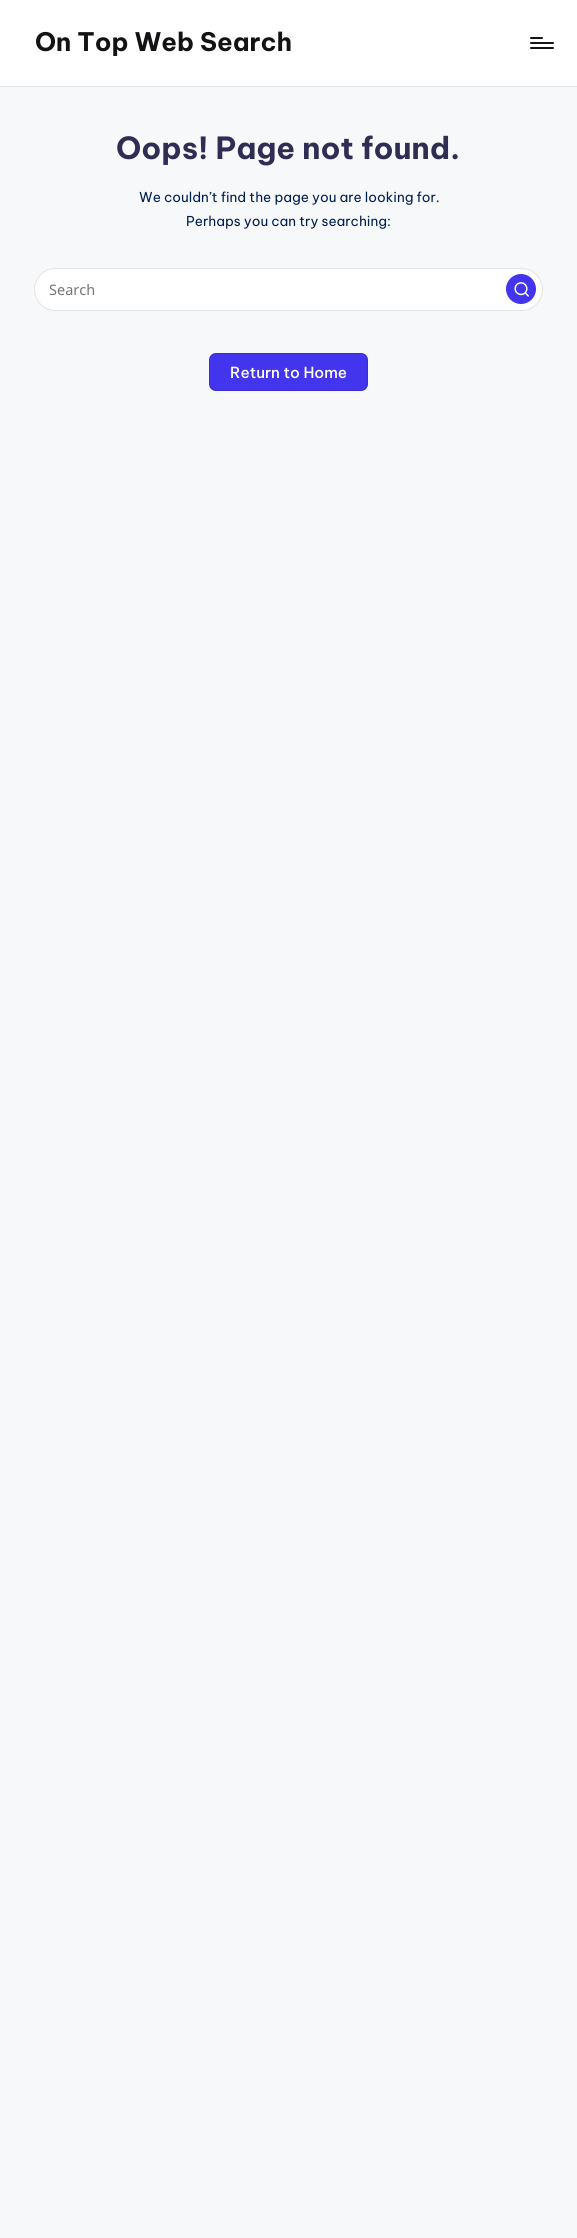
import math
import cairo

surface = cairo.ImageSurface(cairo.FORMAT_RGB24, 577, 2238)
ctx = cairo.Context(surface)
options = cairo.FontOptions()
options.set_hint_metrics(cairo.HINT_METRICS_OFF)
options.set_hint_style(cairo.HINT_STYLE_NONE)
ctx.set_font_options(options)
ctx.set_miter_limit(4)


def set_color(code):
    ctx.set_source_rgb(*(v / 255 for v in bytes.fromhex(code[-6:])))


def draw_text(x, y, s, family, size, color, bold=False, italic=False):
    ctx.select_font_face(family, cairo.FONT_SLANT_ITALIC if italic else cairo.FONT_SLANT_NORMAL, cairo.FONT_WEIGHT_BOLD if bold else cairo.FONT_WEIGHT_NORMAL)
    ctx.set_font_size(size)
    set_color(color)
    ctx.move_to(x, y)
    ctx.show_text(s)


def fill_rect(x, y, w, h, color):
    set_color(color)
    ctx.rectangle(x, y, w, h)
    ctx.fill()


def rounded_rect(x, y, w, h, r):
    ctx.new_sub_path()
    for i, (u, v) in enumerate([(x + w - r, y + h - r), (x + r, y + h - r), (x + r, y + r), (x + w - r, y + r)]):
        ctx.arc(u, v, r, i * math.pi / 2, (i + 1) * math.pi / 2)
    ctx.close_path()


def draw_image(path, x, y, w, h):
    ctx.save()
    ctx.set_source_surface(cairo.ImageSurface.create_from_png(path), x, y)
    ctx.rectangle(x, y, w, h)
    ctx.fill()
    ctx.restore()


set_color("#f7f8f9")
ctx.paint()
fill_rect(0, 0, 577, 86, "#ffffff")
fill_rect(0, 86, 577, 1, "#e3e3e3")
draw_text(35, 51, "On Top Web Search", "Be Vietnam Pro", 25.5, "#131315", bold=True)
rounded_rect(530, 42, 24, 2, 1)
ctx.fill()
rounded_rect(530, 37, 13, 2, 1)
ctx.fill()
rounded_rect(530, 47, 24, 2, 1)
ctx.fill()
draw_text(116, 159, "Oops! Page not found.", "Be Vietnam Pro", 30.5, "#302d55", bold=True)
draw_text(139, 202, "We couldn’t find the page you are looking for.", "Be Vietnam Pro", 13.6, "#002050")
draw_text(186, 226, "Perhaps you can try searching:", "Be Vietnam Pro", 13.6, "#002050")
set_color("#ffffff")
rounded_rect(34, 268, 509, 43, 21.5)
ctx.fill()
rounded_rect(34.5, 268.5, 508, 42, 21)
ctx.set_source_rgba(0.725, 0.725, 0.725, 0.4)
ctx.set_line_width(1)
ctx.stroke()
draw_text(49, 295, "Search", "Noto Sans", 14.5, "#757575")
set_color("#4334ed")
ctx.new_path()
ctx.arc(521, 289, 15, 0, 2 * math.pi)
ctx.fill()
draw_image("assets/img1.png", 514, 282, 15, 15)
rounded_rect(209, 353, 159, 38, 7)
ctx.fill()
rounded_rect(209.5, 353.5, 158, 37, 6.5)
ctx.set_source_rgba(0, 0, 0, 0.12)
ctx.stroke()
draw_text(230, 378, "Return to Home", "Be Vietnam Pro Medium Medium", 15.25, "#ffffff")
surface.write_to_png("output.png")
